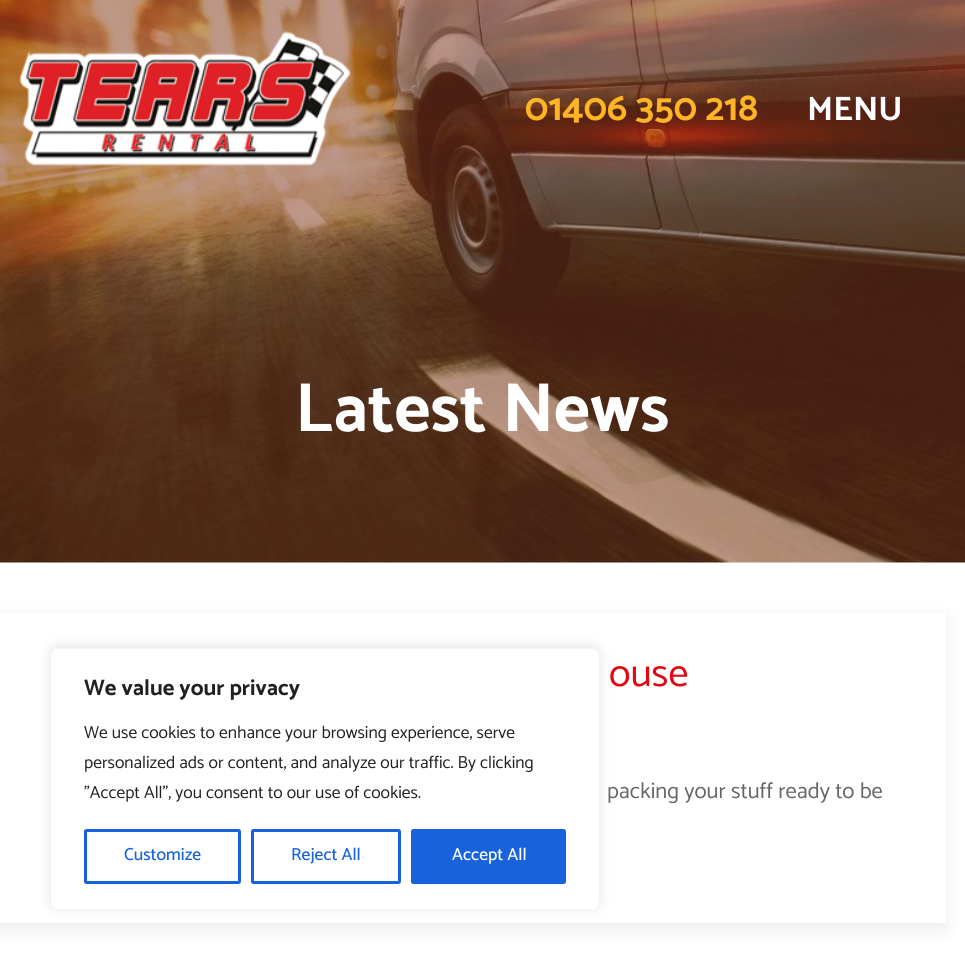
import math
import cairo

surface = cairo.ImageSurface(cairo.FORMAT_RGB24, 965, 959)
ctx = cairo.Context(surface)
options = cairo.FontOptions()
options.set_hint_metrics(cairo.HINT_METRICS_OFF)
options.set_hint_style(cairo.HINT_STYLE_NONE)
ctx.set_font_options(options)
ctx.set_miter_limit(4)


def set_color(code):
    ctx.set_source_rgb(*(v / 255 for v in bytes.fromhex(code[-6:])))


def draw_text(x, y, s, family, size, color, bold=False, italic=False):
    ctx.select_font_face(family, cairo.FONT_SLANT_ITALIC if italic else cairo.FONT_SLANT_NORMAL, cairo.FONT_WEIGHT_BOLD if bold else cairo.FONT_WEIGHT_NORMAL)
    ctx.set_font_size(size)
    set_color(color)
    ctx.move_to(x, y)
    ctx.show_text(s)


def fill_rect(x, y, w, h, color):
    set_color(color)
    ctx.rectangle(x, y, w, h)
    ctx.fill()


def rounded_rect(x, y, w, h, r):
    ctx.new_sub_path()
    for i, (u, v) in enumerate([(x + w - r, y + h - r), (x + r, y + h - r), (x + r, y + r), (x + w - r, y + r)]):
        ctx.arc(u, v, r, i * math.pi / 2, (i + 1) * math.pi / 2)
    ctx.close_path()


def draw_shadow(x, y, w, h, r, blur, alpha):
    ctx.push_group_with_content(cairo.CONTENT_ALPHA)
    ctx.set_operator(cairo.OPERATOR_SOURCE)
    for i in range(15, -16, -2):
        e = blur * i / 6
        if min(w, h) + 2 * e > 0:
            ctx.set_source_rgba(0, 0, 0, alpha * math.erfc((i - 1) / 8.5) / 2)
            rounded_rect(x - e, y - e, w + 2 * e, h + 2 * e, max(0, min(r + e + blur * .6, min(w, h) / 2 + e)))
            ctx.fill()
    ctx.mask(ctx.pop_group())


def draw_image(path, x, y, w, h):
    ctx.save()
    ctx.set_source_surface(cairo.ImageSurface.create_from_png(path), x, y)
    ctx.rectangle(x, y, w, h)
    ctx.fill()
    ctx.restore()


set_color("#ffffff")
ctx.paint()
draw_image("assets/img2.png", 0, 0, 965, 563)
draw_image("assets/img1.png", 19, 31, 332, 136)
draw_text(525, 120, "01406 350 218", "Catamaran", 38.25, "#fdb526", bold=True)
draw_text(807, 120, "MENU", "Catamaran", 34, "#ffffff", bold=True)
draw_text(295, 431, "Latest News", "Catamaran", 69.75, "#ffffff", bold=True)
set_color("#000000")
draw_shadow(-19, 619, 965, 310, 0, 9.5, 0.08)
fill_rect(0, 613, 946, 310, "#ffffff")
draw_text(609, 686, "ouse", "Catamaran", 40, "#e30613")
draw_text(607, 798, "packing your stuff ready to be", "Catamaran", 22.5, "#666666")
set_color("#acabab")
draw_shadow(50, 646, 550, 263, 8, 6, 0.3)
set_color("#ffffff")
rounded_rect(50.5, 648.5, 549, 261, 7.5)
ctx.fill_preserve()
set_color("#f4f4f4")
ctx.set_line_width(1)
ctx.stroke()
draw_text(84, 695, "We value your privacy", "Catamaran", 22.5, "#212121", bold=True)
draw_text(84, 738, "We use cookies to enhance your browsing experience, serve", "Catamaran", 17.5, "#212121")
draw_text(84, 768, "personalized ads or content, and analyze our traffic. By clicking", "Catamaran", 17.5, "#212121")
draw_text(84, 798, "\"Accept All\", you consent to our use of cookies.", "Catamaran", 17.5, "#212121")
rounded_rect(85.5, 830.5, 154, 52, 1)
set_color("#1863dc")
ctx.set_line_width(3)
ctx.stroke()
draw_text(124, 860, "Customize", "Catamaran Medium", 17.5, "#1863dc")
rounded_rect(252.5, 830.5, 147, 52, 1)
ctx.stroke()
draw_text(291, 860, "Reject All", "Catamaran Medium", 17.5, "#1863dc")
rounded_rect(412.5, 830.5, 152, 52, 1)
ctx.fill_preserve()
ctx.stroke()
draw_text(452, 860, "Accept All", "Catamaran Medium", 17.5, "#ffffff")
surface.write_to_png("output.png")
